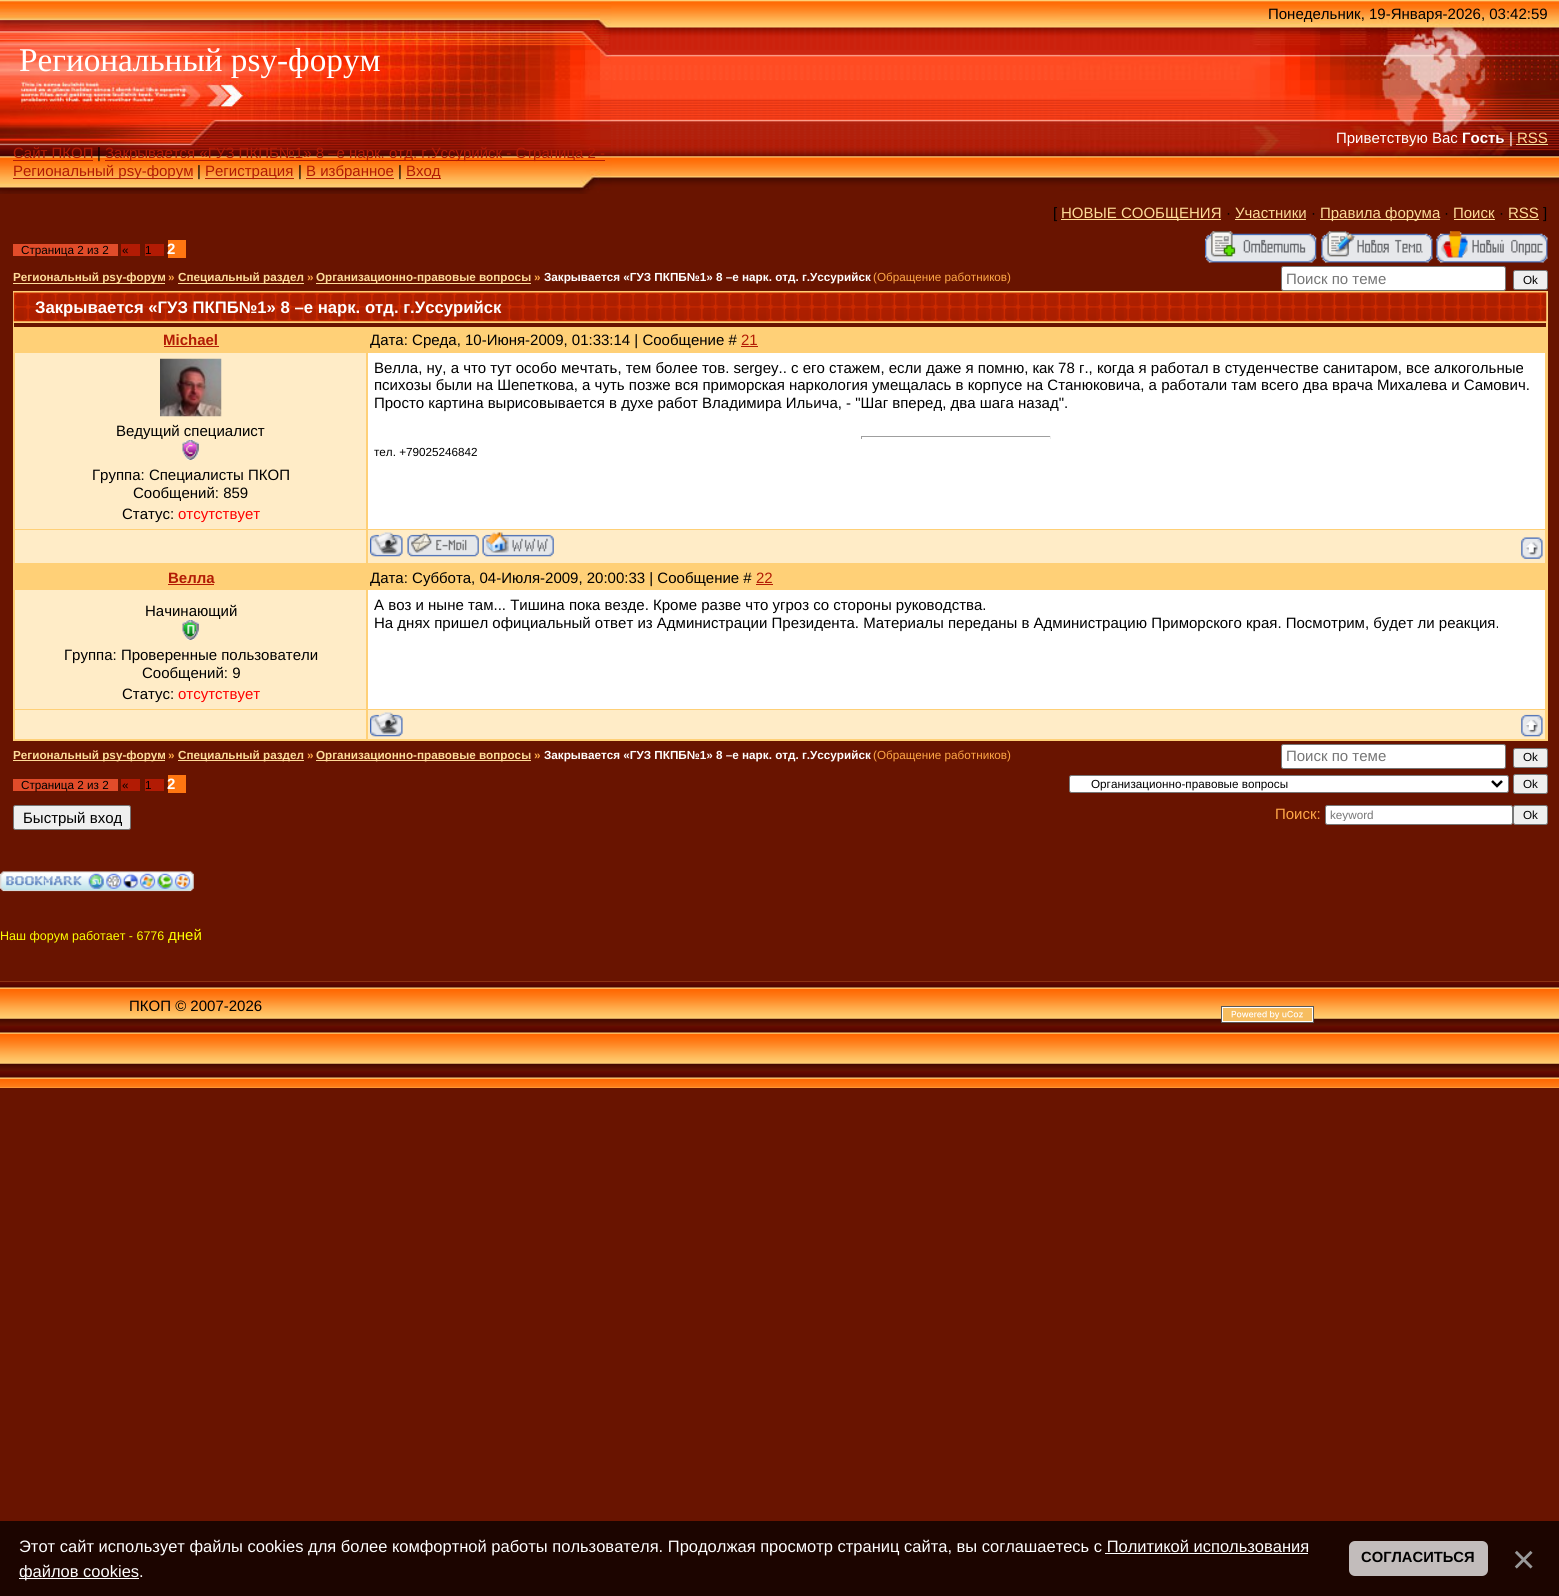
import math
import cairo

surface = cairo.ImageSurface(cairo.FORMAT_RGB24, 1559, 1596)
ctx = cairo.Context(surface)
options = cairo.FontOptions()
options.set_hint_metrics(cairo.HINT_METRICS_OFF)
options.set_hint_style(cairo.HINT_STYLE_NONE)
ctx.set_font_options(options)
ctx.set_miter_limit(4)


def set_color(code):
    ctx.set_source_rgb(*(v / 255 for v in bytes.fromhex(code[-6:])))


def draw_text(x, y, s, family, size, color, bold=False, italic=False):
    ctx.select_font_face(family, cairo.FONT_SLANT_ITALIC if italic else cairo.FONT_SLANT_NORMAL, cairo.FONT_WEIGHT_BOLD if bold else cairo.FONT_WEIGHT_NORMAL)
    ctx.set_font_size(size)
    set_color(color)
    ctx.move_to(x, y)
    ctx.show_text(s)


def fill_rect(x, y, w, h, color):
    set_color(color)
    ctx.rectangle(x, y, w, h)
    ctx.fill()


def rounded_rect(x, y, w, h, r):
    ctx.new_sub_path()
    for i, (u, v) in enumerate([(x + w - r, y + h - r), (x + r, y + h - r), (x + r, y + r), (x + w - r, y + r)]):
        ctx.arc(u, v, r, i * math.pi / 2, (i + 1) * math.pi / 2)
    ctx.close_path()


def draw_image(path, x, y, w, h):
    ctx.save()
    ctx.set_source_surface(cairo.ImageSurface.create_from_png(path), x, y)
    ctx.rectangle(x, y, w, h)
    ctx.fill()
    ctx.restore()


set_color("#691400")
ctx.paint()
draw_image("assets/img1.png", 0, 0, 1559, 194)
draw_image("assets/img2.png", 0, 0, 612, 194)
draw_text(19, 71, "Региональный psy-форум", "Liberation Serif", 33.25, "#ffffff")
draw_text(13, 158, "Сайт ПКОП", "Liberation Sans", 15, "#b21b04")
fill_rect(13, 160, 80, 1, "#b21b04")
draw_text(97, 158, "|", "Liberation Sans", 15, "#000000")
fill_rect(105, 160, 500, 1, "#b21b04")
draw_text(105, 158, "Закрывается «ГУЗ ПКПБ№1» 8 –е нарк. отд. г.Уссурийск - Страница 2 -", "Liberation Sans", 15, "#b21b04")
fill_rect(13, 178, 180, 1, "#b21b04")
draw_text(13, 176, "Региональный psy-форум", "Liberation Sans", 15, "#b21b04")
draw_text(197, 176, "|", "Liberation Sans", 15, "#000000")
fill_rect(205, 178, 89, 1, "#b21b04")
draw_text(205, 176, "Регистрация", "Liberation Sans", 15, "#b21b04")
draw_text(298, 176, "|", "Liberation Sans", 15, "#000000")
fill_rect(306, 178, 88, 1, "#b21b04")
draw_text(306, 176, "В избранное", "Liberation Sans", 15, "#b21b04")
draw_text(398, 176, "|", "Liberation Sans", 15, "#000000")
fill_rect(406, 178, 35, 1, "#b21b04")
draw_text(406, 176, "Вход", "Liberation Sans", 15, "#b21b04")
draw_image("assets/img3.png", 1060, 0, 499, 194)
draw_text(1268, 19, "Понедельник, 19-Января-2026, 03:42:59", "Liberation Sans", 15, "#000000")
draw_text(1336, 143, "Приветствую Вас", "Liberation Sans", 15, "#ffffff")
draw_text(1462, 143, "Гость", "Liberation Sans", 15, "#ffffff", bold=True)
draw_text(1509, 143, "|", "Liberation Sans", 15, "#ffffff")
draw_text(1517, 143, "RSS", "Liberation Sans", 15, "#ffdc99")
fill_rect(1516, 144, 32, 1, "#ffdc99")
draw_text(1053, 218, "[", "Liberation Sans", 15, "#000000")
fill_rect(1061, 219, 160, 1, "#ffdc99")
draw_text(1061, 218, "НОВЫЕ СООБЩЕНИЯ", "Liberation Sans", 15, "#ffdc99")
draw_text(1226, 218, "·", "Liberation Sans", 15, "#000000")
draw_text(1235, 218, "Участники", "Liberation Sans", 15, "#ffdc99")
fill_rect(1235, 219, 71, 1, "#ffdc99")
draw_text(1311, 218, "·", "Liberation Sans", 15, "#000000")
fill_rect(1320, 219, 120, 1, "#ffdc99")
draw_text(1320, 218, "Правила форума", "Liberation Sans", 15, "#ffdc99")
draw_text(1444, 218, "·", "Liberation Sans", 15, "#000000")
draw_text(1453, 218, "Поиск", "Liberation Sans", 15, "#ffdc99")
fill_rect(1454, 219, 41, 1, "#ffdc99")
draw_text(1499, 218, "·", "Liberation Sans", 15, "#000000")
draw_text(1508, 218, "RSS", "Liberation Sans", 15, "#ffdc99")
fill_rect(1509, 219, 30, 1, "#ffdc99")
draw_text(1543, 218, "]", "Liberation Sans", 15, "#000000")
fill_rect(13, 244, 105, 12, "#e14c2a")
draw_text(21, 254, "Страница 2 из 2", "Liberation Sans", 11.7, "#000000")
fill_rect(121, 244, 19, 12, "#b21b04")
draw_text(122, 254, "«", "Liberation Sans", 11.7, "#000000")
fill_rect(145, 244, 19, 12, "#b21b04")
draw_text(145, 254, "1", "Liberation Sans", 11.7, "#000000")
fill_rect(168, 240, 18, 18, "#ff7611")
draw_text(167, 254, "2", "Liberation Sans", 15, "#ffffff", bold=True)
draw_image("assets/img4.png", 1205, 231, 112, 32)
draw_image("assets/img5.png", 1321, 231, 112, 32)
draw_image("assets/img6.png", 1436, 231, 112, 32)
fill_rect(13, 283, 152, 1, "#ffdc99")
draw_text(13, 281, "Региональный psy-форум", "Liberation Sans", 11.7, "#ffdc99", bold=True)
draw_text(168, 281, "»", "Liberation Sans", 11.7, "#ffa747", bold=True)
fill_rect(178, 283, 126, 1, "#ffdc99")
draw_text(178, 281, "Специальный раздел", "Liberation Sans", 11.7, "#ffdc99", bold=True)
draw_text(307, 281, "»", "Liberation Sans", 11.7, "#ffa747", bold=True)
fill_rect(316, 283, 215, 1, "#ffdc99")
draw_text(316, 281, "Организационно-правовые вопросы", "Liberation Sans", 11.7, "#ffdc99", bold=True)
draw_text(534, 281, "»", "Liberation Sans", 11.7, "#ffa747", bold=True)
draw_text(544, 281, "Закрывается «ГУЗ ПКПБ№1» 8 –е нарк. отд. г.Уссурийск", "Liberation Sans", 11.7, "#ffffff", bold=True)
draw_text(873, 281, "(Обращение работников)", "Liberation Sans", 11.7, "#ffa747")
set_color("#ffffff")
rounded_rect(1281.5, 266.5, 224, 24, 2)
ctx.fill_preserve()
set_color("#767676")
ctx.set_line_width(1)
ctx.stroke()
draw_text(1286, 284, "Поиск по теме", "Liberation Sans", 15, "#757575")
set_color("#efefef")
rounded_rect(1513.5, 270.5, 34, 19, 2)
ctx.fill_preserve()
set_color("#767676")
ctx.stroke()
draw_text(1523, 284, "Ok", "Liberation Sans", 11.7, "#000000")
fill_rect(13, 291, 1535, 450, "#ffd077")
draw_image("assets/img7.png", 13, 292, 1534, 30)
draw_text(35, 313, "Закрывается «ГУЗ ПКПБ№1» 8 –е нарк. отд. г.Уссурийск", "Liberation Sans", 16.7, "#ffffff", bold=True)
fill_rect(14, 323, 1532, 4, "#691400")
draw_text(163, 345, "Michael", "Liberation Sans", 15, "#b21b04", bold=True)
fill_rect(164, 346, 55, 1, "#b21b04")
draw_text(370, 345, "Дата: Среда, 10-Июня-2009, 01:33:14 | Сообщение #", "Liberation Sans", 15, "#000000")
draw_text(741, 345, "21", "Liberation Sans", 15, "#b21b04")
fill_rect(741, 346, 17, 1, "#b21b04")
fill_rect(368, 353, 1177, 176, "#ffffff")
draw_text(374, 373, "Велла, ну, а что тут особо мечтать, тем более тов. sergey.. с его стажем, если даже я помню, как 78 г., когда я работал в студенчестве санитаром, все алкогольные", "Liberation Sans", 15, "#000000")
draw_text(374, 390, "психозы были на Шепеткова, а чуть позже вся приморская наркология умещалась в корпусе на Станюковича, а работали там всего два врача Михалева и Самович.", "Liberation Sans", 15, "#000000")
draw_text(374, 408, "Просто картина вырисовывается в духе работ Владимира Ильича, - \"Шаг вперед, два шага назад\".", "Liberation Sans", 15, "#000000")
fill_rect(861, 436, 190, 1, "#9f9f9f")
fill_rect(1050, 436, 1, 3, "#eeeeee")
fill_rect(861, 436, 1, 3, "#9f9f9f")
draw_text(374, 456, "тел. +79025246842", "Liberation Sans", 11.7, "#000000")
fill_rect(15, 353, 351, 176, "#ffecc7")
draw_image("assets/img8.png", 160, 358, 62, 59)
draw_text(116, 436, "Ведущий специалист", "Liberation Sans", 15, "#000000")
draw_image("assets/img9.png", 182, 440, 17, 20)
draw_text(92, 480, "Группа: Специалисты ПКОП", "Liberation Sans", 15, "#000000")
draw_text(133, 498, "Сообщений: 859", "Liberation Sans", 15, "#000000")
draw_text(122, 519, "Статус:", "Liberation Sans", 15, "#000000")
draw_text(178, 519, "отсутствует", "Liberation Sans", 15, "#ff0000")
fill_rect(15, 530, 351, 33, "#ffecc7")
fill_rect(368, 530, 1177, 33, "#ffecc7")
draw_image("assets/img10.png", 370, 532, 33, 25)
draw_image("assets/img11.png", 407, 533, 72, 24)
draw_image("assets/img12.png", 482, 532, 72, 25)
draw_image("assets/img13.png", 1521, 537, 22, 22)
draw_text(168, 583, "Велла", "Liberation Sans", 15, "#b21b04", bold=True)
fill_rect(168, 584, 46, 1, "#b21b04")
draw_text(370, 583, "Дата: Суббота, 04-Июля-2009, 20:00:33 | Сообщение #", "Liberation Sans", 15, "#000000")
draw_text(756, 583, "22", "Liberation Sans", 15, "#b21b04")
fill_rect(756, 584, 17, 1, "#b21b04")
fill_rect(15, 590, 351, 119, "#ffecc7")
draw_text(145, 616, "Начинающий", "Liberation Sans", 15, "#000000")
draw_image("assets/img14.png", 182, 620, 17, 20)
draw_text(64, 660, "Группа: Проверенные пользователи", "Liberation Sans", 15, "#000000")
draw_text(142, 678, "Сообщений: 9", "Liberation Sans", 15, "#000000")
draw_text(122, 699, "Статус:", "Liberation Sans", 15, "#000000")
draw_text(178, 699, "отсутствует", "Liberation Sans", 15, "#ff0000")
fill_rect(368, 590, 1177, 119, "#ffffff")
draw_text(374, 610, "А воз и ныне там... Тишина пока везде. Кроме разве что угроз со стороны руководства.", "Liberation Sans", 15, "#000000")
draw_text(374, 628, "На днях пришел официальный ответ из Администрации Президента. Материалы переданы в Администрацию Приморского края. Посмотрим, будет ли реакция.", "Liberation Sans", 15, "#000000")
fill_rect(15, 710, 351, 29, "#ffecc7")
fill_rect(368, 710, 1177, 29, "#ffecc7")
draw_image("assets/img10.png", 370, 712, 33, 25)
draw_image("assets/img15.png", 1521, 714, 22, 23)
fill_rect(13, 760, 152, 1, "#ffdc99")
draw_text(13, 759, "Региональный psy-форум", "Liberation Sans", 11.7, "#ffdc99", bold=True)
draw_text(168, 759, "»", "Liberation Sans", 11.7, "#ffa747", bold=True)
fill_rect(178, 760, 126, 1, "#ffdc99")
draw_text(178, 759, "Специальный раздел", "Liberation Sans", 11.7, "#ffdc99", bold=True)
draw_text(307, 759, "»", "Liberation Sans", 11.7, "#ffa747", bold=True)
fill_rect(316, 760, 215, 1, "#ffdc99")
draw_text(316, 759, "Организационно-правовые вопросы", "Liberation Sans", 11.7, "#ffdc99", bold=True)
draw_text(534, 759, "»", "Liberation Sans", 11.7, "#ffa747", bold=True)
draw_text(544, 759, "Закрывается «ГУЗ ПКПБ№1» 8 –е нарк. отд. г.Уссурийск", "Liberation Sans", 11.7, "#ffffff", bold=True)
draw_text(873, 759, "(Обращение работников)", "Liberation Sans", 11.7, "#ffa747")
set_color("#ffffff")
rounded_rect(1281.5, 744.5, 224, 24, 2)
ctx.fill_preserve()
set_color("#767676")
ctx.stroke()
draw_text(1286, 761, "Поиск по теме", "Liberation Sans", 15, "#757575")
set_color("#efefef")
rounded_rect(1513.5, 748.5, 34, 19, 2)
ctx.fill_preserve()
set_color("#767676")
ctx.stroke()
draw_text(1523, 761, "Ok", "Liberation Sans", 11.7, "#000000")
fill_rect(13, 779, 105, 12, "#e14c2a")
draw_text(21, 789, "Страница 2 из 2", "Liberation Sans", 11.7, "#000000")
fill_rect(121, 779, 19, 12, "#b21b04")
draw_text(122, 789, "«", "Liberation Sans", 11.7, "#000000")
fill_rect(145, 779, 19, 12, "#b21b04")
draw_text(145, 789, "1", "Liberation Sans", 11.7, "#000000")
fill_rect(168, 775, 18, 18, "#ff7611")
draw_text(167, 789, "2", "Liberation Sans", 15, "#ffffff", bold=True)
rounded_rect(1069.5, 775.5, 439, 17, 2)
ctx.fill_preserve()
set_color("#767676")
ctx.stroke()
ctx.new_path()
ctx.move_to(1492, 781)
ctx.line_to(1497, 786)
ctx.line_to(1502, 781)
set_color("#000000")
ctx.set_line_width(2.5)
ctx.stroke()
draw_text(1091, 788, "Организационно-правовые вопросы", "Liberation Sans", 11.7, "#000000")
set_color("#efefef")
rounded_rect(1513.5, 774.5, 34, 19, 2)
ctx.fill_preserve()
set_color("#767676")
ctx.set_line_width(1)
ctx.stroke()
draw_text(1523, 788, "Ok", "Liberation Sans", 11.7, "#000000")
set_color("#efefef")
rounded_rect(13.5, 805.5, 117, 24, 2)
ctx.fill_preserve()
set_color("#767676")
ctx.stroke()
draw_text(23, 823, "Быстрый вход", "Liberation Sans", 15, "#000000")
draw_text(1275, 819, "Поиск:", "Liberation Sans", 15, "#ffa747")
set_color("#ffffff")
rounded_rect(1325.5, 805.5, 187, 19, 2)
ctx.fill_preserve()
set_color("#767676")
ctx.stroke()
ctx.save()
ctx.rectangle(1330, 809, 178, 12)
ctx.clip()
draw_text(1330, 819, "keyword", "Liberation Sans", 11.7, "#757575")
ctx.restore()
set_color("#efefef")
rounded_rect(1513.5, 805.5, 34, 19, 2)
ctx.fill_preserve()
set_color("#767676")
ctx.stroke()
draw_text(1523, 819, "Ok", "Liberation Sans", 11.7, "#000000")
draw_image("assets/img16.png", 0, 871, 194, 21)
draw_text(0, 940, "Наш форум работает - 6776", "Liberation Sans", 12.5, "#ffff00")
draw_text(168, 940, "дней", "Liberation Sans", 15, "#ffff00")
fill_rect(0, 981, 1559, 107, "#ffac4c")
draw_image("assets/img17.png", 0, 981, 1559, 107)
draw_text(129, 1011, "ПКОП © 2007-2026", "Liberation Sans", 15, "#000000")
draw_image("assets/img18.png", 1221, 1006, 93, 17)
fill_rect(0, 1521, 1559, 75, "#1c0500")
draw_text(19, 1552, "Этот сайт использует файлы cookies для более комфортной работы пользователя. Продолжая просмотр страниц сайта, вы соглашаетесь с Политикой использования", "Liberation Sans", 16.5, "#ffffff")
fill_rect(19, 1578, 120, 1, "#ffffff")
draw_text(19, 1577, "файлов cookies.", "Liberation Sans", 16.5, "#ffffff")
fill_rect(1105, 1553, 203, 1, "#ffffff")
set_color("#c2bcbb")
rounded_rect(1349, 1541, 139, 35, 6)
ctx.fill()
draw_text(1361, 1562, "СОГЛАСИТЬСЯ", "Liberation Sans", 14.75, "#000000", bold=True)
draw_text(1512, 1573, "×", "Liberation Sans", 40, "#999999")
surface.write_to_png("output.png")
